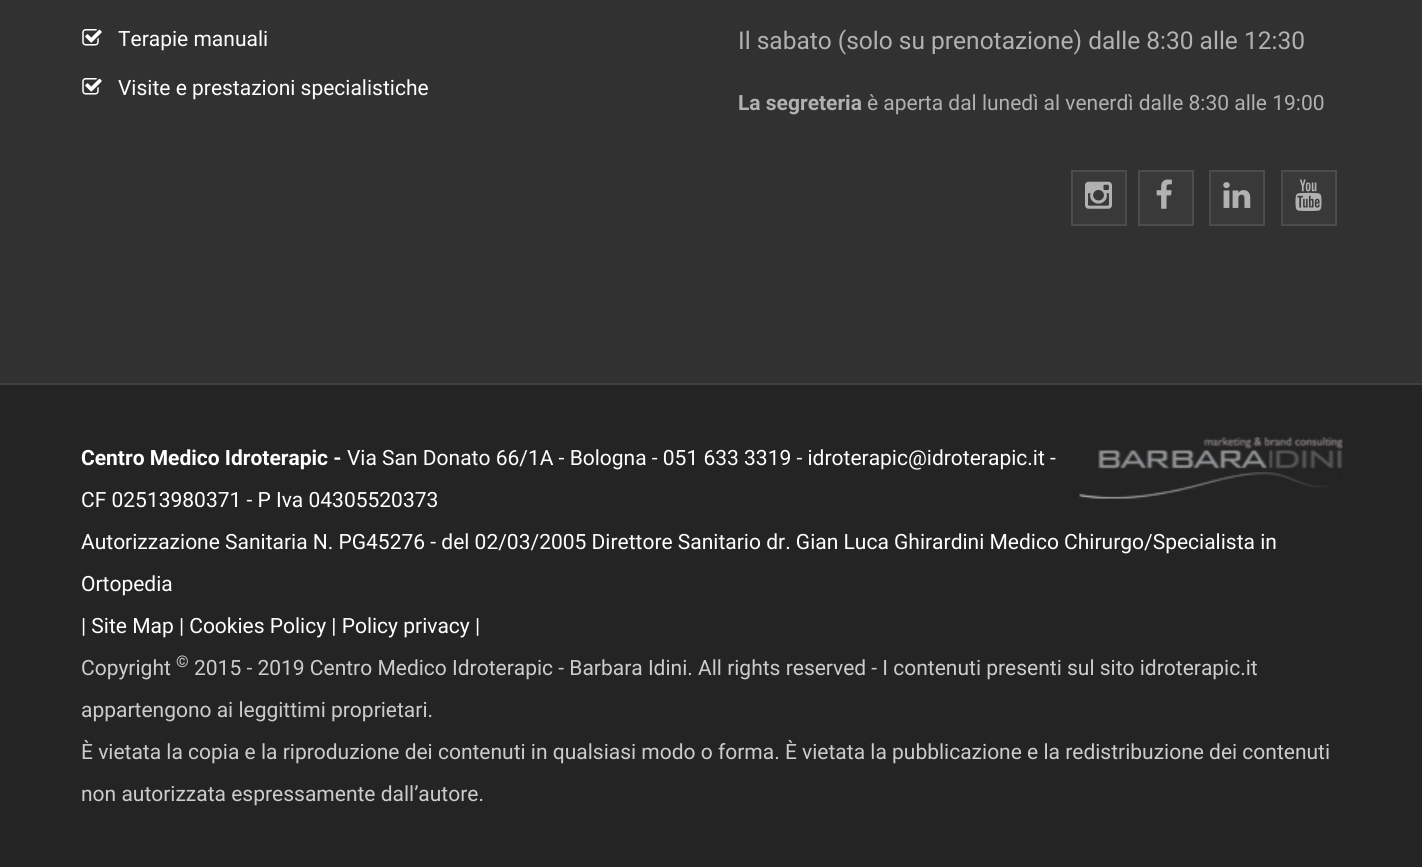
import math
import cairo

surface = cairo.ImageSurface(cairo.FORMAT_RGB24, 1422, 867)
ctx = cairo.Context(surface)
options = cairo.FontOptions()
options.set_hint_metrics(cairo.HINT_METRICS_OFF)
options.set_hint_style(cairo.HINT_STYLE_NONE)
ctx.set_font_options(options)
ctx.set_miter_limit(4)


def set_color(code):
    ctx.set_source_rgb(*(v / 255 for v in bytes.fromhex(code[-6:])))


def draw_text(x, y, s, family, size, color, bold=False, italic=False):
    ctx.select_font_face(family, cairo.FONT_SLANT_ITALIC if italic else cairo.FONT_SLANT_NORMAL, cairo.FONT_WEIGHT_BOLD if bold else cairo.FONT_WEIGHT_NORMAL)
    ctx.set_font_size(size)
    set_color(color)
    ctx.move_to(x, y)
    ctx.show_text(s)


def fill_rect(x, y, w, h, color):
    set_color(color)
    ctx.rectangle(x, y, w, h)
    ctx.fill()


def draw_image(path, x, y, w, h):
    ctx.save()
    ctx.set_source_surface(cairo.ImageSurface.create_from_png(path), x, y)
    ctx.rectangle(x, y, w, h)
    ctx.fill()
    ctx.restore()


set_color("#313131")
ctx.paint()
draw_image("assets/img1.png", 82, 29, 20, 17)
draw_text(118, 46, "Terapie manuali", "Roboto", 21, "#ffffff")
draw_image("assets/img1.png", 82, 78, 20, 17)
draw_text(118, 95, "Visite e prestazioni specialistiche", "Roboto", 21, "#ffffff")
draw_text(738, 49, "Il sabato (solo su prenotazione) dalle 8:30 alle 12:30", "Roboto", 24.5, "#b1b1b1")
draw_text(738, 110, "La segreteria", "Roboto", 21, "#b1b1b1", bold=True)
draw_text(867, 110, "è aperta dal lunedì al venerdì dalle 8:30 alle 19:00", "Roboto", 21, "#b1b1b1")
set_color("#393939")
ctx.rectangle(1072, 171, 54, 54)
ctx.fill_preserve()
set_color("#4c4c4c")
ctx.stroke()
draw_image("assets/img2.png", 1085, 181, 27, 28)
set_color("#393939")
ctx.rectangle(1139, 171, 54, 54)
ctx.fill_preserve()
set_color("#4c4c4c")
ctx.stroke()
draw_image("assets/img3.png", 1156, 179, 16, 30)
set_color("#393939")
ctx.rectangle(1210, 171, 54, 54)
ctx.fill_preserve()
set_color("#4c4c4c")
ctx.stroke()
draw_image("assets/img4.png", 1223, 182, 28, 26)
set_color("#393939")
ctx.rectangle(1282, 171, 54, 54)
ctx.fill_preserve()
set_color("#4c4c4c")
ctx.stroke()
draw_image("assets/img5.png", 1295, 179, 27, 32)
fill_rect(0, 385, 1422, 482, "#242424")
fill_rect(0, 383, 1422, 2, "#404040")
draw_text(81, 465, "Centro Medico Idroterapic -", "Roboto", 21, "#ffffff", bold=True)
draw_image("assets/img6.png", 1079, 437, 264, 62)
draw_text(347, 465, "Via San Donato 66/1A - Bologna - 051 633 3319 - idroterapic@idroterapic.it -", "Roboto", 21, "#ffffff")
draw_text(81, 507, "CF 02513980371 - P Iva 04305520373", "Roboto", 21, "#ffffff")
draw_text(81, 549, "Autorizzazione Sanitaria N. PG45276 - del 02/03/2005 Direttore Sanitario dr. Gian Luca Ghirardini Medico Chirurgo/Specialista in", "Roboto", 21, "#ffffff")
draw_text(81, 591, "Ortopedia", "Roboto", 21, "#ffffff")
draw_text(81, 633, "| Site Map | Cookies Policy | Policy privacy |", "Roboto", 21, "#ffffff")
draw_text(81, 675, "Copyright", "Roboto", 21, "#cccccc")
draw_text(176, 667, "©", "Roboto", 16, "#cccccc")
draw_text(194, 675, "2015 - 2019 Centro Medico Idroterapic - Barbara Idini. All rights reserved - I contenuti presenti sul sito idroterapic.it", "Roboto", 21, "#cccccc")
draw_text(81, 717, "appartengono ai leggittimi proprietari.", "Roboto", 21, "#cccccc")
draw_text(81, 759, "È vietata la copia e la riproduzione dei contenuti in qualsiasi modo o forma. È vietata la pubblicazione e la redistribuzione dei contenuti", "Roboto", 21, "#cccccc")
draw_text(81, 801, "non autorizzata espressamente dall’autore.", "Roboto", 21, "#cccccc")
surface.write_to_png("output.png")
